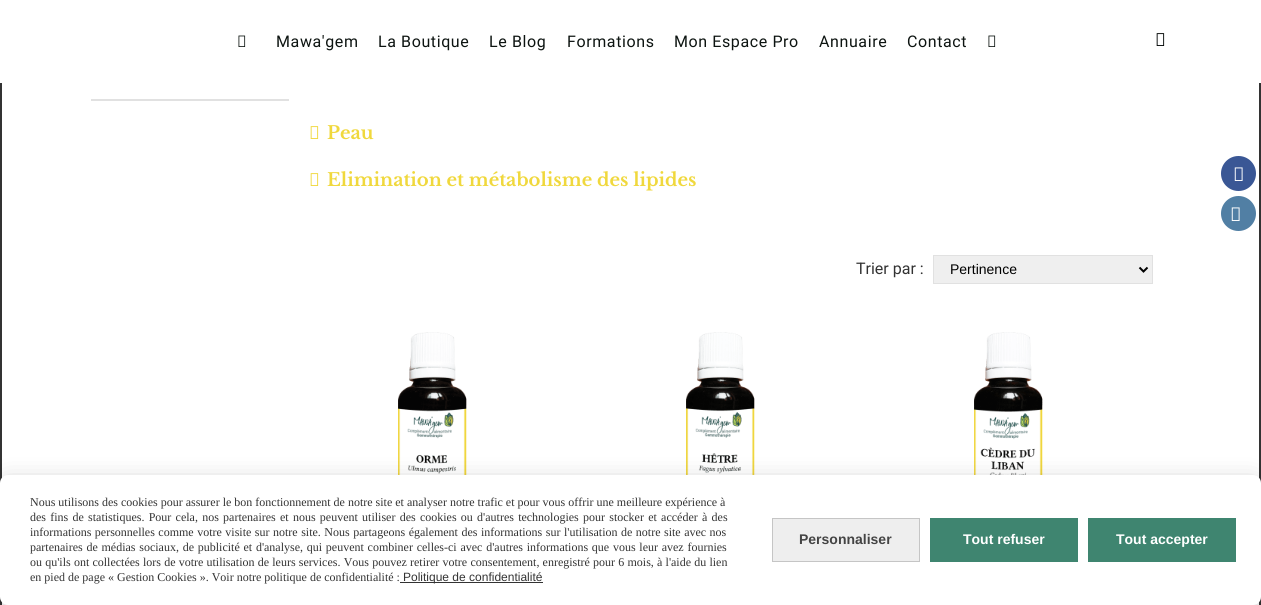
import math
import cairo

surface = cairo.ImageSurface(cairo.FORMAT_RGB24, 1261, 605)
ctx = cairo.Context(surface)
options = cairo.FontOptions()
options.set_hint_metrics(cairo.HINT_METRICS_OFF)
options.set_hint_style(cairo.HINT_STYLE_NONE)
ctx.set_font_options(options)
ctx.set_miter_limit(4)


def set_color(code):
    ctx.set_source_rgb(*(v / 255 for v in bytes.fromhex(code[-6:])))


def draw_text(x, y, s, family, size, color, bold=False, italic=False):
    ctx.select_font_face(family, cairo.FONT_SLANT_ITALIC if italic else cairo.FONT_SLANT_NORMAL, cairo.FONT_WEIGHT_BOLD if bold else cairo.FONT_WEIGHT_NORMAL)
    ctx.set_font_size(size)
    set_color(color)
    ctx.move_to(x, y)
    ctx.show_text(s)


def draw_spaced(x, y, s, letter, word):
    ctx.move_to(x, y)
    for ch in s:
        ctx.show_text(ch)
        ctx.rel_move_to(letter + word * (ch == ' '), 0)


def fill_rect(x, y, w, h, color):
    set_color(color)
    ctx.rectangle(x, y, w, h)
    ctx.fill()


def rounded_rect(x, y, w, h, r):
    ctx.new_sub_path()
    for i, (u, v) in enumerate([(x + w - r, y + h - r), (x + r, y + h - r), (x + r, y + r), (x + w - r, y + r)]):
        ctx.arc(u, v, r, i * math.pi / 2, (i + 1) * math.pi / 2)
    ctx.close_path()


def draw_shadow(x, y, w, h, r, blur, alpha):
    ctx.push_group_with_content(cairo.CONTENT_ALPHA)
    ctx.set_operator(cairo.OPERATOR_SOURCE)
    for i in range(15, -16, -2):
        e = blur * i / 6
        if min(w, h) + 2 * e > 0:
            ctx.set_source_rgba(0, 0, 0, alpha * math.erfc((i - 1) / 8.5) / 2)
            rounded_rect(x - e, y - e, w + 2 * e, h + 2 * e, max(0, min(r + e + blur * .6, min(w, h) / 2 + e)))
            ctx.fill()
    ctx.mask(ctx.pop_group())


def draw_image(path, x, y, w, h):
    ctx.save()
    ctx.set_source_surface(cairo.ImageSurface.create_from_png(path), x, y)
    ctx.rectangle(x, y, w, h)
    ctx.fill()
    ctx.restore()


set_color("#ffffff")
ctx.paint()
ctx.rectangle(1, -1, 1259, 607)
set_color("#333333")
ctx.stroke()
fill_rect(0, 0, 1261, 83, "#ffffff")
draw_image("assets/img1.png", 238, 35, 8, 12)
ctx.select_font_face("Roboto")
ctx.set_font_size(16)
set_color("#0d1411")
draw_spaced(276, 47, "Mawa'gem", 0.6, 0)
draw_spaced(378, 47, "La Boutique", 0.6, 0)
draw_spaced(489, 47, "Le Blog", 0.6, 0)
draw_spaced(567, 47, "Formations", 0.6, 0)
draw_spaced(674, 47, "Mon Espace Pro", 0.6, 0)
draw_spaced(819, 47, "Annuaire", 0.6, 0)
draw_spaced(907, 47, "Contact", 0.6, 0)
draw_image("assets/img1.png", 988, 35, 8, 12)
draw_image("assets/img2.png", 1156, 33, 9, 13)
fill_rect(91, 99, 198, 2, "#e1e1e1")
draw_image("assets/img3.png", 310, 126, 9, 13)
draw_text(327, 139, "Peau", "Libre Baskerville", 18, "#f0d83d", bold=True)
draw_image("assets/img3.png", 310, 173, 9, 13)
draw_text(327, 186, "Elimination et métabolisme des lipides", "Libre Baskerville", 18, "#f0d83d", bold=True)
draw_text(856, 274, "Trier par :", "Roboto", 16, "#333333")
set_color("#efefef")
ctx.rectangle(933.5, 255.5, 219, 28)
ctx.fill_preserve()
set_color("#e1e1e1")
ctx.set_line_width(1)
ctx.stroke()
ctx.new_path()
ctx.move_to(1139.5, 267.5)
ctx.line_to(1143.5, 271.5)
ctx.line_to(1147.5, 267.5)
set_color("#000000")
ctx.set_line_width(2)
ctx.stroke()
draw_text(950, 274, "Pertinence", "Liberation Sans", 14, "#000000")
draw_image("assets/img4.png", 398, 332, 70, 143)
draw_image("assets/img5.png", 686, 332, 71, 143)
draw_image("assets/img6.png", 974, 332, 71, 143)
set_color("#3a5795")
ctx.arc(1238.5, 173.5, 17.5, 0, 2 * math.pi)
ctx.fill()
draw_image("assets/img7.png", 1234, 167, 9, 14)
set_color("#517fa4")
ctx.arc(1238.5, 213.5, 17.5, 0, 2 * math.pi)
ctx.fill()
draw_image("assets/img8.png", 1231, 207, 9, 14)
set_color("#000000")
draw_shadow(0, 477, 1261, 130, 8, 3, 0.05)
draw_shadow(0, 479, 1261, 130, 8, 12, 0.15)
set_color("#ffffff")
rounded_rect(0, 475, 1261, 130, 8)
ctx.fill()
draw_text(30, 506, "Nous utilisons des cookies pour assurer le bon fonctionnement de notre site et analyser notre trafic et pour vous offrir une meilleure expérience à", "Liberation Serif", 12, "#333333")
draw_spaced(30, 521, "des fins de statistiques. Pour cela, nos partenaires et nous peuvent utiliser des cookies ou d'autres technologies pour stocker et accéder à des", 0, 1.25)
draw_spaced(30, 536, "informations personnelles comme votre visite sur notre site. Nous partageons également des informations sur l'utilisation de notre site avec nos", 0, 0.5)
draw_spaced(30, 551, "partenaires de médias sociaux, de publicité et d'analyse, qui peuvent combiner celles-ci avec d'autres informations que vous leur avez fournies", 0, 0.75)
draw_spaced(30, 566, "ou qu'ils ont collectées lors de votre utilisation de leurs services. Vous pouvez retirer votre consentement, enregistré pour 6 mois, à l'aide du lien", 0, 0.2)
draw_text(30, 581, "en pied de page « Gestion Cookies ». Voir notre politique de confidentialité :", "Liberation Serif", 12, "#333333")
fill_rect(400, 582, 143, 1, "#333333")
draw_text(403, 581, "Politique de confidentialité", "Liberation Sans", 12, "#333333")
set_color("#eeeeee")
ctx.rectangle(772.5, 518.5, 147, 43)
ctx.fill_preserve()
set_color("#c5c5c5")
ctx.set_line_width(1)
ctx.stroke()
draw_text(799, 544, "Personnaliser", "Liberation Sans", 14, "#444444", bold=True)
fill_rect(930, 518, 148, 44, "#3f8570")
draw_text(963, 544, "Tout refuser", "Liberation Sans", 14, "#ffffff", bold=True)
fill_rect(1088, 518, 148, 44, "#3f8570")
draw_text(1116, 544, "Tout accepter", "Liberation Sans", 14, "#ffffff", bold=True)
surface.write_to_png("output.png")
